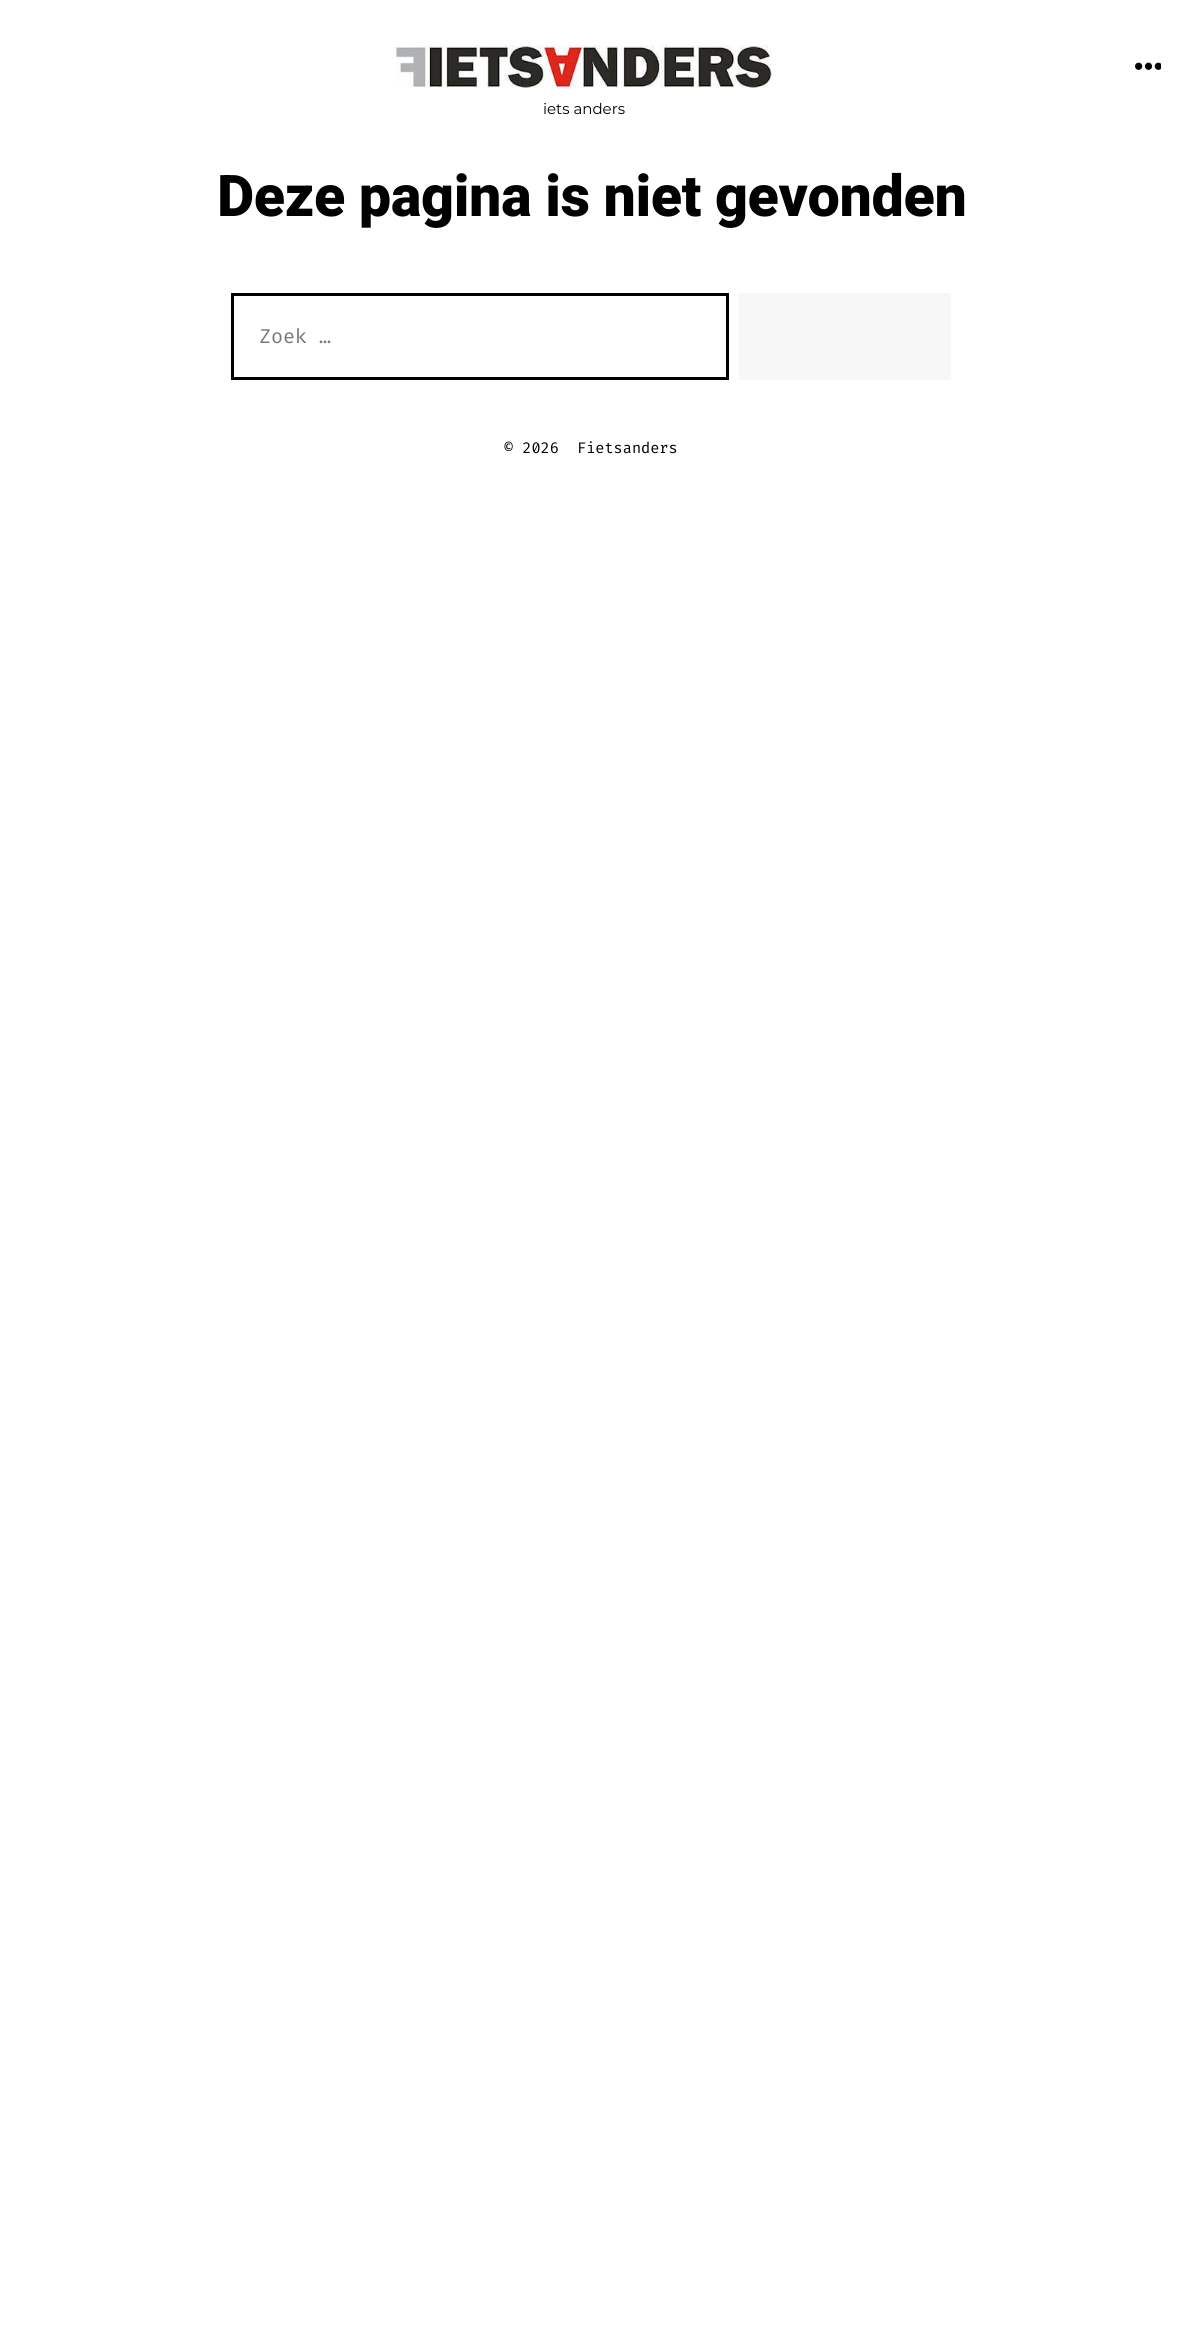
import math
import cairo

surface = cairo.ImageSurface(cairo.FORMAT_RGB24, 1182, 2341)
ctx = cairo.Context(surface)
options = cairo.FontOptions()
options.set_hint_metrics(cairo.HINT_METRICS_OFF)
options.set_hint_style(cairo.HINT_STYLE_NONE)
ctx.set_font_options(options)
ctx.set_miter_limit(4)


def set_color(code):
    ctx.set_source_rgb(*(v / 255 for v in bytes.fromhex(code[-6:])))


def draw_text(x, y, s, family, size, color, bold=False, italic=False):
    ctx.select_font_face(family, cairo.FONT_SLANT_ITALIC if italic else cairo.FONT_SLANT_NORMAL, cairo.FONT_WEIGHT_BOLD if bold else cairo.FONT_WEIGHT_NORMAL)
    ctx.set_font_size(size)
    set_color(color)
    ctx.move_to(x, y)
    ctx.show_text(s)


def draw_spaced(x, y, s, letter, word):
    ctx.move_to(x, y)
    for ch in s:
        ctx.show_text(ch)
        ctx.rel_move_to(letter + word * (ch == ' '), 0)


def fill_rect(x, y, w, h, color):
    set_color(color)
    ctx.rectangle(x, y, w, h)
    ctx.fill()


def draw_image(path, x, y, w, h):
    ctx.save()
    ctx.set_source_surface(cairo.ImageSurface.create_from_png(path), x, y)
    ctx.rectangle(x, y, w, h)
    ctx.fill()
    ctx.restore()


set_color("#ffffff")
ctx.paint()
draw_image("assets/img1.png", 1135, 62, 26, 8)
draw_image("assets/img2.png", 396, 45, 376, 43)
draw_text(543, 114, "iets anders", "Montserrat", 15, "#000000")
ctx.select_font_face("Heebo ExtraBold")
ctx.set_font_size(57.5)
draw_spaced(217, 216, "Deze pagina is niet gevonden", -0.4, 0)
ctx.rectangle(232.5, 294.5, 495, 84)
ctx.set_line_width(3)
ctx.stroke()
draw_text(259, 343, "Zoek …", "Fira Code", 20, "#787878")
fill_rect(739, 293, 212, 87, "#f7f7f7")
draw_text(504, 453, "© 2026", "Fira Code", 15.25, "#000000")
draw_text(577, 453, "Fietsanders", "Fira Code", 15.25, "#000000")
surface.write_to_png("output.png")
